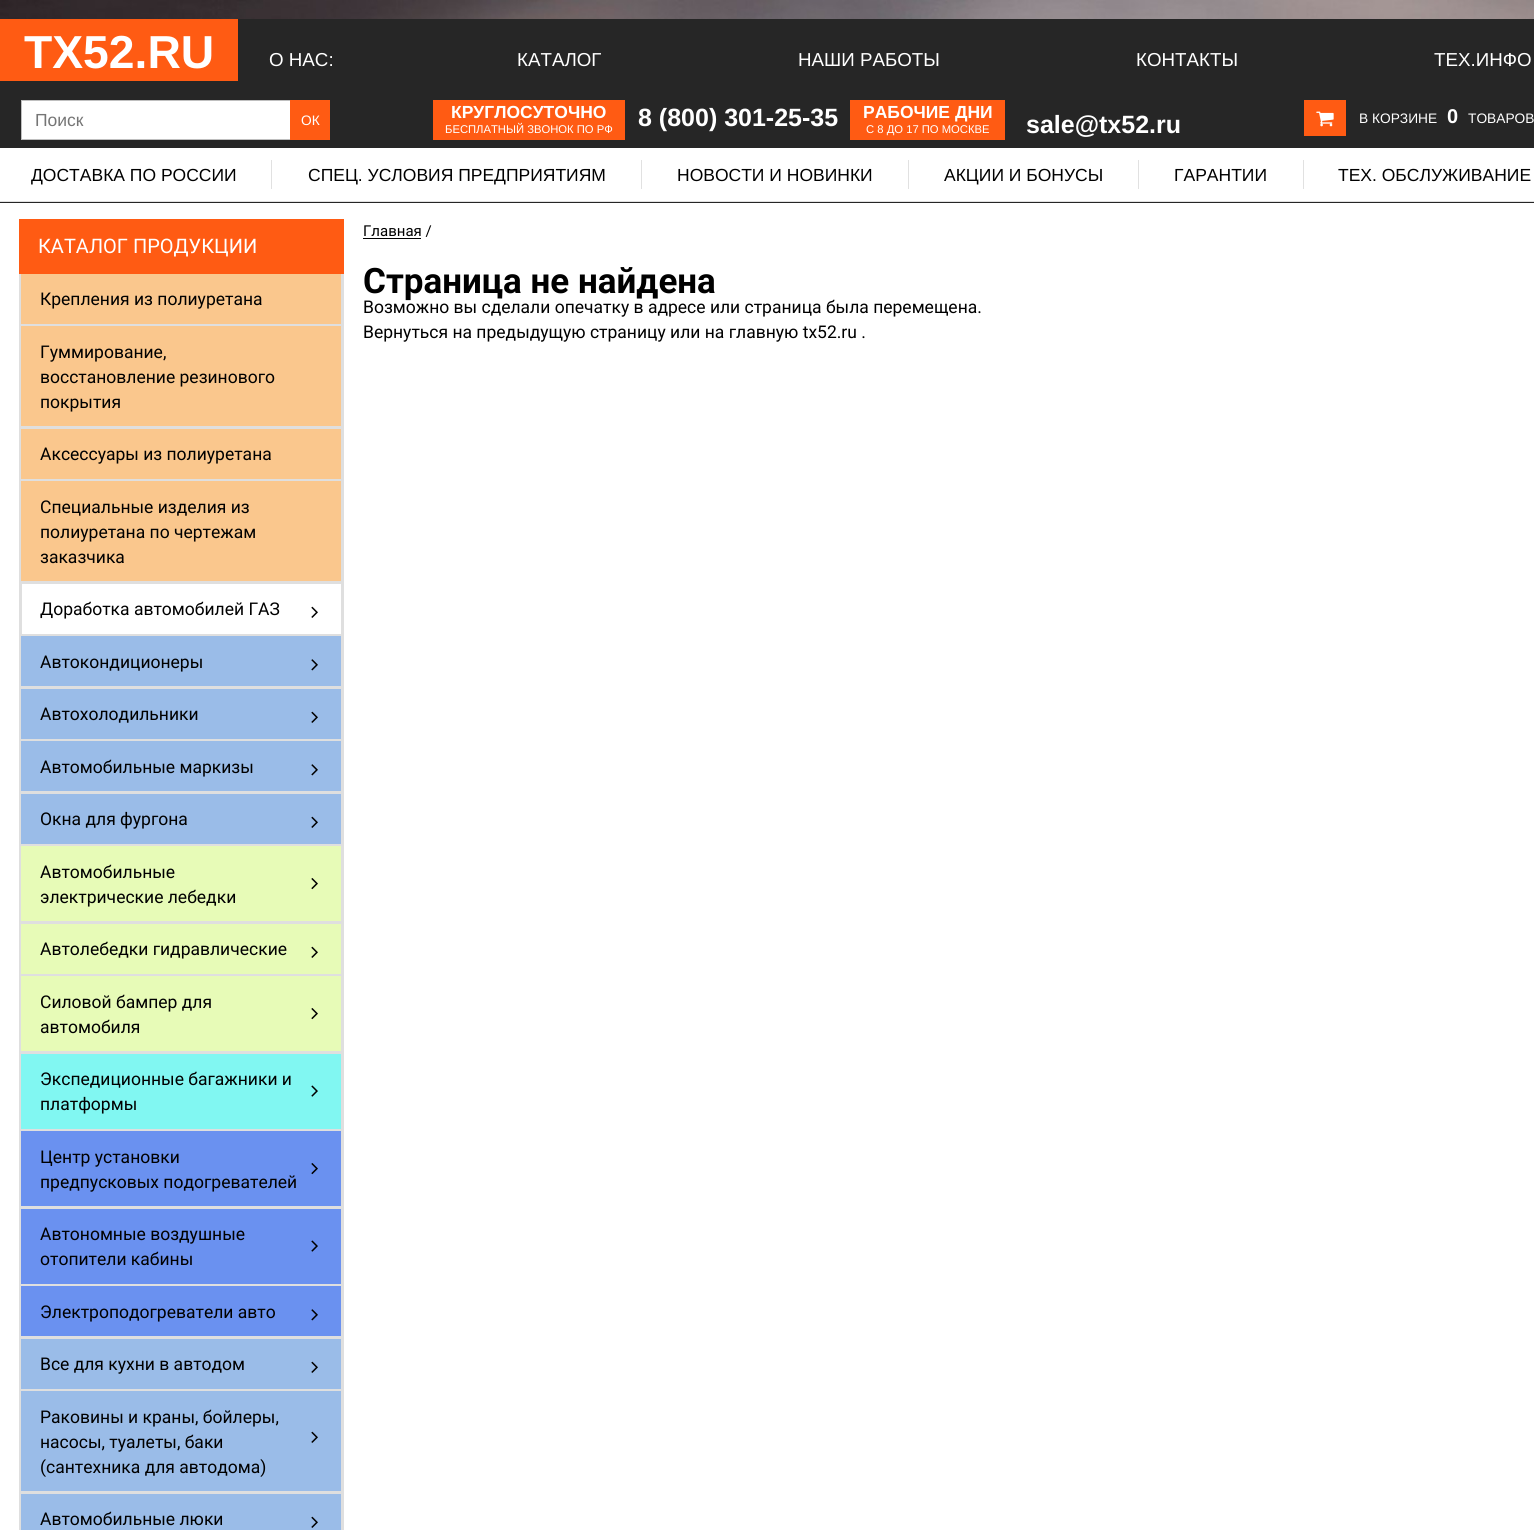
import math
import cairo

surface = cairo.ImageSurface(cairo.FORMAT_RGB24, 1534, 1530)
ctx = cairo.Context(surface)
options = cairo.FontOptions()
options.set_hint_metrics(cairo.HINT_METRICS_OFF)
options.set_hint_style(cairo.HINT_STYLE_NONE)
ctx.set_font_options(options)
ctx.set_miter_limit(4)


def set_color(code):
    ctx.set_source_rgb(*(v / 255 for v in bytes.fromhex(code[-6:])))


def draw_text(x, y, s, family, size, color, bold=False, italic=False):
    ctx.select_font_face(family, cairo.FONT_SLANT_ITALIC if italic else cairo.FONT_SLANT_NORMAL, cairo.FONT_WEIGHT_BOLD if bold else cairo.FONT_WEIGHT_NORMAL)
    ctx.set_font_size(size)
    set_color(color)
    ctx.move_to(x, y)
    ctx.show_text(s)


def fill_rect(x, y, w, h, color):
    set_color(color)
    ctx.rectangle(x, y, w, h)
    ctx.fill()


def draw_image(path, x, y, w, h):
    ctx.save()
    ctx.set_source_surface(cairo.ImageSurface.create_from_png(path), x, y)
    ctx.rectangle(x, y, w, h)
    ctx.fill()
    ctx.restore()


set_color("#ffffff")
ctx.paint()
draw_image("assets/img1.png", 0, 0, 1534, 19)
fill_rect(0, 19, 1534, 184, "#262626")
fill_rect(0, 201, 1534, 1, "#e0e0e0")
fill_rect(0, 19, 238, 62, "#ff5b13")
draw_text(24, 68, "ТХ52.RU", "Liberation Sans", 46.25, "#ffffff", bold=True)
draw_text(269, 66, "О НАС:", "Liberation Sans", 18.75, "#ffffff")
draw_text(517, 66, "КАТАЛОГ", "Liberation Sans", 18.75, "#ffffff")
draw_text(798, 66, "НАШИ РАБОТЫ", "Liberation Sans", 18.75, "#ffffff")
draw_text(1136, 66, "КОНТАКТЫ", "Liberation Sans", 18.75, "#ffffff")
draw_text(1434, 66, "ТЕХ.ИНФО", "Liberation Sans", 18.75, "#ffffff")
fill_rect(22, 101, 268, 38, "#ffffff")
ctx.rectangle(21.5, 100.5, 271, 39)
set_color("#bfbfbf")
ctx.set_line_width(1)
ctx.stroke()
draw_text(35, 126, "Поиск", "Liberation Sans", 17.5, "#757575")
fill_rect(290, 100, 40, 40, "#ff5b13")
draw_text(301, 125, "ОК", "Liberation Sans", 13.75, "#ffffff")
fill_rect(433, 100, 192, 40, "#ff5b13")
draw_text(451, 118, "КРУГЛОСУТОЧНО", "Liberation Sans", 17.5, "#ffffff", bold=True)
draw_text(445, 133, "БЕСПЛАТНЫЙ ЗВОНОК ПО РФ", "Liberation Sans", 11.25, "#ffffff")
draw_text(638, 126, "8 (800) 301-25-35", "Liberation Sans", 25, "#ffffff", bold=True)
fill_rect(850, 100, 155, 40, "#ff5b13")
draw_text(863, 118, "РАБОЧИЕ ДНИ", "Liberation Sans", 17.5, "#ffffff", bold=True)
draw_text(866, 133, "С 8 ДО 17 ПО МОСКВЕ", "Liberation Sans", 11.25, "#ffffff")
draw_text(1026, 133, "sale@tx52.ru", "Liberation Sans", 25, "#ffffff", bold=True)
fill_rect(1304, 100, 42, 36, "#ff5b13")
draw_image("assets/img2.png", 1316, 111, 18, 16)
draw_text(1359, 123, "В КОРЗИНЕ", "Liberation Sans", 13.75, "#ffffff")
draw_text(1447, 123, "0", "Liberation Sans", 20, "#ffffff", bold=True)
draw_text(1468, 123, "ТОВАРОВ", "Liberation Sans", 13.75, "#ffffff")
fill_rect(0, 148, 1534, 53, "#ffffff")
draw_text(31, 181, "ДОСТАВКА ПО РОССИИ", "Liberation Sans", 17.5, "#000000")
fill_rect(271, 160, 1, 29, "#e1e1e1")
draw_text(308, 181, "СПЕЦ. УСЛОВИЯ ПРЕДПРИЯТИЯМ", "Liberation Sans", 17.5, "#000000")
fill_rect(641, 160, 1, 29, "#e1e1e1")
draw_text(677, 181, "НОВОСТИ И НОВИНКИ", "Liberation Sans", 17.5, "#000000")
fill_rect(908, 160, 1, 29, "#e1e1e1")
draw_text(944, 181, "АКЦИИ И БОНУСЫ", "Liberation Sans", 17.5, "#000000")
fill_rect(1138, 160, 1, 29, "#e1e1e1")
draw_text(1174, 181, "ГАРАНТИИ", "Liberation Sans", 17.5, "#000000")
fill_rect(1303, 160, 1, 29, "#e1e1e1")
draw_text(1338, 181, "ТЕХ. ОБСЛУЖИВАНИЕ", "Liberation Sans", 17.5, "#000000")
fill_rect(19, 219, 325, 55, "#ff5b13")
draw_text(38, 253, "КАТАЛОГ ПРОДУКЦИИ", "Roboto", 20, "#ffffff")
fill_rect(341, 274, 3, 1256, "#dfdfdf")
fill_rect(19, 274, 3, 1256, "#dfdfdf")
fill_rect(21, 274, 320, 50, "#fac78d")
fill_rect(21, 324, 320, 2, "#dfdfdf")
draw_text(40, 305, "Крепления из полиуретана", "Roboto", 17.5, "#000000")
fill_rect(21, 326, 320, 100, "#fac78d")
fill_rect(21, 426, 320, 3, "#dfdfdf")
draw_text(40, 358, "Гуммирование,", "Roboto", 17.5, "#000000")
draw_text(40, 383, "восстановление резинового", "Roboto", 17.5, "#000000")
draw_text(40, 408, "покрытия", "Roboto", 17.5, "#000000")
fill_rect(21, 429, 320, 50, "#fac78d")
fill_rect(21, 479, 320, 2, "#dfdfdf")
draw_text(40, 460, "Аксессуары из полиуретана", "Roboto", 17.5, "#000000")
fill_rect(21, 481, 320, 100, "#fac78d")
fill_rect(21, 581, 320, 3, "#dfdfdf")
draw_text(40, 513, "Специальные изделия из", "Roboto", 17.5, "#000000")
draw_text(40, 538, "полиуретана по чертежам", "Roboto", 17.5, "#000000")
draw_text(40, 563, "заказчика", "Roboto", 17.5, "#000000")
fill_rect(21, 634, 320, 2, "#dfdfdf")
draw_text(40, 615, "Доработка автомобилей ГАЗ", "Roboto", 17.5, "#000000")
draw_image("assets/img3.png", 311, 606, 7, 12)
fill_rect(21, 636, 320, 50, "#9abce8")
fill_rect(21, 686, 320, 3, "#dfdfdf")
draw_text(40, 668, "Автокондиционеры", "Roboto", 17.5, "#000000")
draw_image("assets/img4.png", 311, 659, 7, 12)
fill_rect(21, 689, 320, 50, "#9abce8")
fill_rect(21, 739, 320, 2, "#dfdfdf")
draw_text(40, 720, "Автохолодильники", "Roboto", 17.5, "#000000")
draw_image("assets/img5.png", 311, 711, 7, 12)
fill_rect(21, 741, 320, 50, "#9abce8")
fill_rect(21, 791, 320, 3, "#dfdfdf")
draw_text(40, 773, "Автомобильные маркизы", "Roboto", 17.5, "#000000")
draw_image("assets/img4.png", 311, 764, 7, 12)
fill_rect(21, 794, 320, 50, "#9abce8")
fill_rect(21, 844, 320, 2, "#dfdfdf")
draw_text(40, 825, "Окна для фургона", "Roboto", 17.5, "#000000")
draw_image("assets/img5.png", 311, 816, 7, 12)
fill_rect(21, 846, 320, 75, "#e7fbb7")
fill_rect(21, 921, 320, 3, "#dfdfdf")
draw_text(40, 878, "Автомобильные", "Roboto", 17.5, "#000000")
draw_text(40, 903, "электрические лебедки", "Roboto", 17.5, "#000000")
draw_image("assets/img6.png", 311, 878, 7, 12)
fill_rect(21, 924, 320, 50, "#e7fbb7")
fill_rect(21, 974, 320, 2, "#dfdfdf")
draw_text(40, 955, "Автолебедки гидравлические", "Roboto", 17.5, "#000000")
draw_image("assets/img7.png", 311, 946, 7, 12)
fill_rect(21, 976, 320, 75, "#e7fbb7")
fill_rect(21, 1051, 320, 3, "#dfdfdf")
draw_text(40, 1008, "Силовой бампер для", "Roboto", 17.5, "#000000")
draw_text(40, 1033, "автомобиля", "Roboto", 17.5, "#000000")
draw_image("assets/img6.png", 311, 1008, 7, 12)
fill_rect(21, 1054, 320, 75, "#81f7f2")
fill_rect(21, 1129, 320, 2, "#dfdfdf")
draw_text(40, 1085, "Экспедиционные багажники и", "Roboto", 17.5, "#000000")
draw_text(40, 1110, "платформы", "Roboto", 17.5, "#000000")
draw_image("assets/img8.png", 311, 1085, 7, 12)
fill_rect(21, 1131, 320, 75, "#6a91f0")
fill_rect(21, 1206, 320, 3, "#dfdfdf")
draw_text(40, 1163, "Центр установки", "Roboto", 17.5, "#000000")
draw_text(40, 1188, "предпусковых подогревателей", "Roboto", 17.5, "#000000")
draw_image("assets/img9.png", 311, 1163, 7, 12)
fill_rect(21, 1209, 320, 75, "#6a91f0")
fill_rect(21, 1284, 320, 2, "#dfdfdf")
draw_text(40, 1240, "Автономные воздушные", "Roboto", 17.5, "#000000")
draw_text(40, 1265, "отопители кабины", "Roboto", 17.5, "#000000")
draw_image("assets/img10.png", 311, 1240, 7, 12)
fill_rect(21, 1286, 320, 50, "#6a91f0")
fill_rect(21, 1336, 320, 3, "#dfdfdf")
draw_text(40, 1318, "Электроподогреватели авто", "Roboto", 17.5, "#000000")
draw_image("assets/img11.png", 311, 1309, 7, 12)
fill_rect(21, 1339, 320, 50, "#9abce8")
fill_rect(21, 1389, 320, 2, "#dfdfdf")
draw_text(40, 1370, "Все для кухни в автодом", "Roboto", 17.5, "#000000")
draw_image("assets/img5.png", 311, 1361, 7, 12)
fill_rect(21, 1391, 320, 100, "#9abce8")
fill_rect(21, 1491, 320, 3, "#dfdfdf")
draw_text(40, 1423, "Раковины и краны, бойлеры,", "Roboto", 17.5, "#000000")
draw_text(40, 1448, "насосы, туалеты, баки", "Roboto", 17.5, "#000000")
draw_text(40, 1473, "(сантехника для автодома)", "Roboto", 17.5, "#000000")
draw_image("assets/img5.png", 311, 1431, 7, 12)
fill_rect(21, 1494, 320, 36, "#9abce8")
draw_text(40, 1525, "Автомобильные люки", "Roboto", 17.5, "#000000")
draw_image("assets/img5.png", 311, 1516, 7, 12)
draw_text(363, 236, "Главная /", "Roboto", 15, "#000000")
fill_rect(363, 238, 58, 1, "#000000")
draw_text(363, 293, "Cтраница не найдена", "Roboto", 35, "#000000", bold=True)
draw_text(363, 313, "Возможно вы сделали опечатку в адресе или страница была перемещена.", "Roboto", 17.5, "#000000")
draw_text(363, 338, "Вернуться на предыдущую страницу или на главную tx52.ru .", "Roboto", 17.5, "#000000")
surface.write_to_png("output.png")
